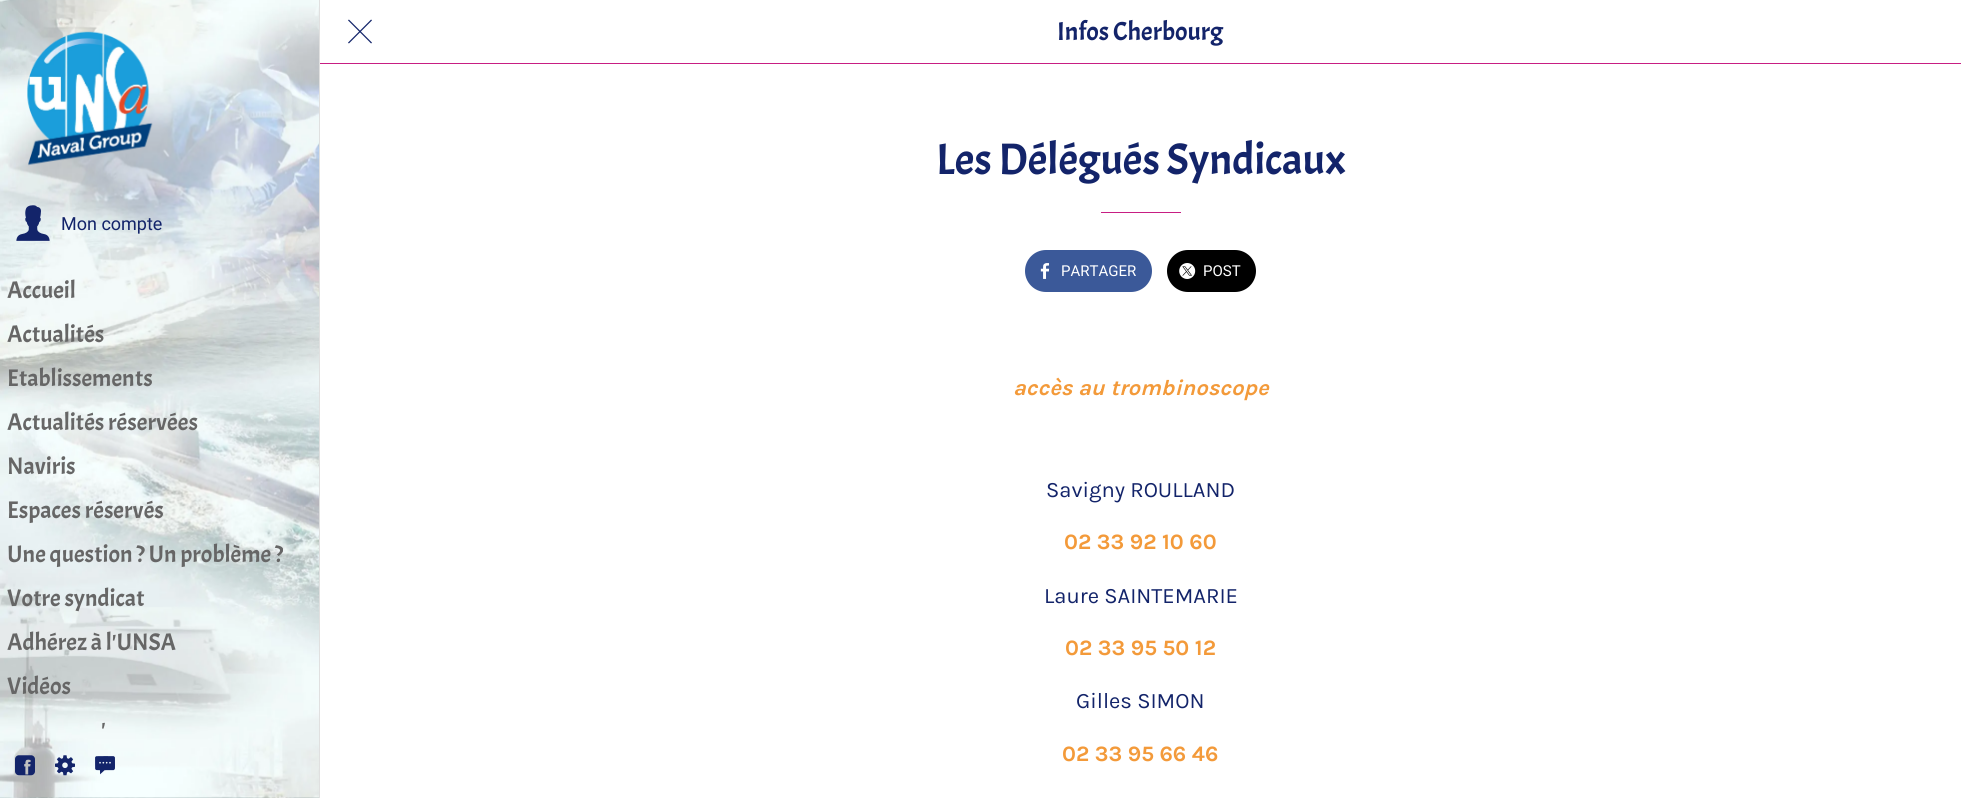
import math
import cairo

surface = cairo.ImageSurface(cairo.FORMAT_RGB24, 1961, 798)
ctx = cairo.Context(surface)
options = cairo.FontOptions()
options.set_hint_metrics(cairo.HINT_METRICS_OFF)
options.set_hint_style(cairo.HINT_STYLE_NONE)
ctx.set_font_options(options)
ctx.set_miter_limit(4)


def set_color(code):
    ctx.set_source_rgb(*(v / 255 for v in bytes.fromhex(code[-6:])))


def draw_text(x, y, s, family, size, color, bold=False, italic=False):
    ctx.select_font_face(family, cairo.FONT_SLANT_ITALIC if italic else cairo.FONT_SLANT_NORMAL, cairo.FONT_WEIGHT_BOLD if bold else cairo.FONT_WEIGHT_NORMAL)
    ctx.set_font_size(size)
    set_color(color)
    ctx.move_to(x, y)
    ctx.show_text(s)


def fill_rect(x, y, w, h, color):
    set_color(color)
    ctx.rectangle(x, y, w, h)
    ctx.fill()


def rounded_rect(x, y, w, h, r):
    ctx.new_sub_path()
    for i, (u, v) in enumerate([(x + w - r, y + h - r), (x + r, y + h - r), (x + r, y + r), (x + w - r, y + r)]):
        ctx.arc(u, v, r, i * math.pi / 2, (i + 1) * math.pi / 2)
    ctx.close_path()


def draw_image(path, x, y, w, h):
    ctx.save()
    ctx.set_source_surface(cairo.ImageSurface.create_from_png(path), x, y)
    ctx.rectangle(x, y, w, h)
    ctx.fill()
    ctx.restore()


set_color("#ffffff")
ctx.paint()
fill_rect(319, 0, 1, 798, "#e0e0e0")
draw_image("assets/img10.png", 0, 797, 319, 1)
draw_image("assets/img1.png", 0, 0, 319, 798)
draw_image("assets/img2.png", 27, 31, 126, 135)
draw_image("assets/img3.png", 16, 205, 34, 36)
draw_text(61, 230, "Mon compte", "Roboto", 18, "#13246a")
draw_text(7, 298, "Accueil", "Acme", 24, "#666666")
draw_text(7, 342, "Actualités", "Acme", 24, "#666666")
draw_text(7, 386, "Etablissements", "Acme", 24, "#666666")
draw_text(7, 430, "Actualités réservées", "Acme", 24, "#666666")
draw_text(7, 474, "Naviris", "Acme", 24, "#666666")
draw_text(7, 518, "Espaces réservés", "Acme", 24, "#666666")
ctx.save()
ctx.rectangle(7, 539, 276, 30)
ctx.clip()
draw_text(7, 562, "Une question ? Un problème ?", "Acme", 24, "#666666")
ctx.restore()
draw_text(7, 606, "Votre syndicat", "Acme", 24, "#666666")
draw_text(7, 650, "Adhérez à l'UNSA", "Acme", 24, "#666666")
draw_text(7, 694, "Vidéos", "Acme", 24, "#666666")
draw_text(101, 738, "'", "Acme", 24, "#666666")
draw_image("assets/img4.png", 15, 755, 20, 21)
draw_image("assets/img5.png", 55, 755, 20, 21)
draw_image("assets/img6.png", 95, 756, 20, 19)
fill_rect(320, 63, 1641, 1, "#c71e83")
draw_image("assets/img7.png", 348, 19, 24, 25)
draw_text(1057, 40, "Infos Cherbourg", "Acme", 26, "#13246a")
draw_text(936, 174, "Les Délégués Syndicaux", "Acme", 44, "#13246a")
fill_rect(1101, 212, 80, 1, "#c71e83")
set_color("#3b5999")
rounded_rect(1025, 250, 127, 42, 21)
ctx.fill()
draw_image("assets/img8.png", 1040, 263, 10, 16)
draw_text(1061, 276, "PARTAGER", "Roboto", 15, "#ffffff")
set_color("#000000")
rounded_rect(1167, 250, 89, 42, 21)
ctx.fill()
draw_image("assets/img9.png", 1179, 263, 17, 16)
draw_text(1203, 276, "POST", "Roboto", 15, "#ffffff")
draw_text(1013, 395, "accès au trombinoscope", "Karla", 22, "#f39a3a", bold=True, italic=True)
draw_text(1046, 497, "Savigny ROULLAND", "Karla", 22, "#13246a")
draw_text(1064, 549, "02 33 92 10 60", "Karla", 22, "#f39a3a", bold=True)
draw_text(1044, 603, "Laure SAINTEMARIE", "Karla", 22, "#13246a")
draw_text(1065, 655, "02 33 95 50 12", "Karla", 22, "#f39a3a", bold=True)
draw_text(1076, 708, "Gilles SIMON", "Karla", 22, "#13246a")
draw_text(1062, 761, "02 33 95 66 46", "Karla", 22, "#f39a3a", bold=True)
surface.write_to_png("output.png")
